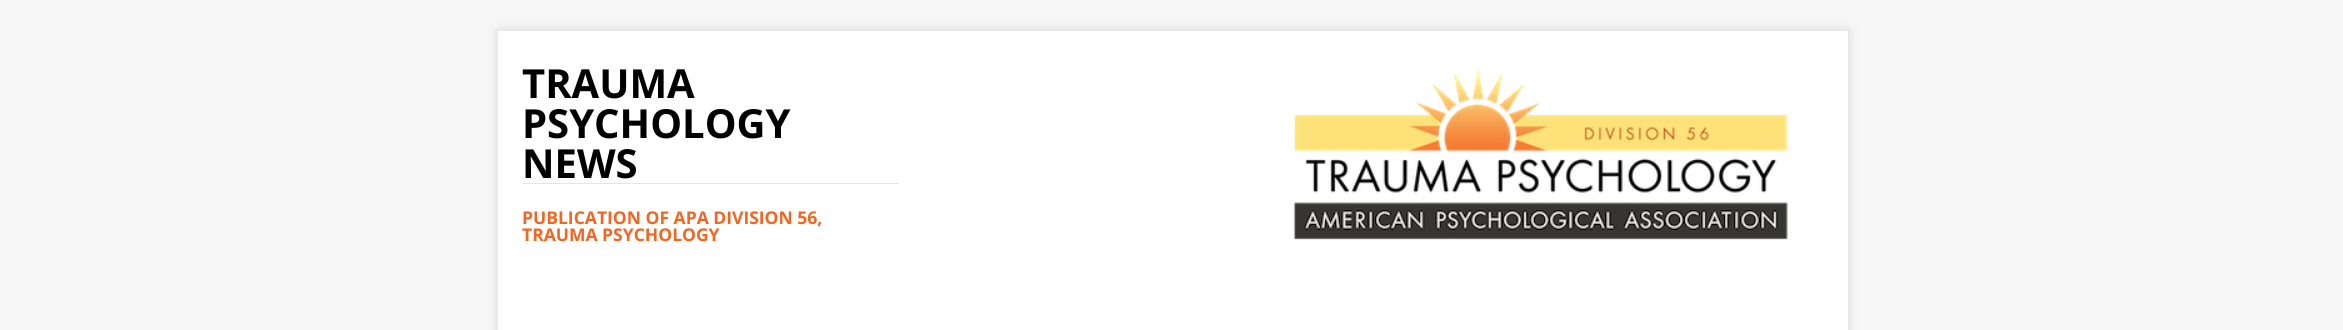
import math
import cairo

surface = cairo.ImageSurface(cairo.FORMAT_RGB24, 2343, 330)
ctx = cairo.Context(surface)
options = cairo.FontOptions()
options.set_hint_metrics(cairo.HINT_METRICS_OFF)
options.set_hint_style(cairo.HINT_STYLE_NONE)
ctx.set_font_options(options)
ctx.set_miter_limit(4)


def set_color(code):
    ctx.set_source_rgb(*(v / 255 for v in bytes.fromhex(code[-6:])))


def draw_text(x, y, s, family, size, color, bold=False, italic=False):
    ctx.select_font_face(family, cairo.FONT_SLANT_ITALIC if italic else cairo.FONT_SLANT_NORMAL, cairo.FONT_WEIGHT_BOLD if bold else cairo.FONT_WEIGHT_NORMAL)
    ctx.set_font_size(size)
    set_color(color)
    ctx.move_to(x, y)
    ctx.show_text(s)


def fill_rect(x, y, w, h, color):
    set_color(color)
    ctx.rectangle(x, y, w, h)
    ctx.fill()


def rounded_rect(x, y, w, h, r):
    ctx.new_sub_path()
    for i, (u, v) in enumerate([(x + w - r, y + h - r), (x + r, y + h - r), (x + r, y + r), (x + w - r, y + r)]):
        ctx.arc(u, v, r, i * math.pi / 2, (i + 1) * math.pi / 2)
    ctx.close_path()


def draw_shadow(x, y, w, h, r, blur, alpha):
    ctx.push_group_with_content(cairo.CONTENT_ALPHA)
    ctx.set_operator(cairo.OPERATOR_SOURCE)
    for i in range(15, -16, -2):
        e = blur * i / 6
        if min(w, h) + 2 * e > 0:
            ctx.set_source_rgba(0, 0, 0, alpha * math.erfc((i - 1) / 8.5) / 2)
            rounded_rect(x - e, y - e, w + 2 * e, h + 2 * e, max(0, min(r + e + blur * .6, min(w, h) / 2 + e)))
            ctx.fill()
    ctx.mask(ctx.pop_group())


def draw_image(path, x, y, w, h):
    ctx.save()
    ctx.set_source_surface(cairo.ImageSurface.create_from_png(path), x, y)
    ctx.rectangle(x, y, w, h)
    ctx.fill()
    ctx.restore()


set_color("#f7f7f7")
ctx.paint()
set_color("#323232")
draw_shadow(498, 31, 1350, 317, 0, 6, 0.17)
fill_rect(498, 31, 1350, 299, "#ffffff")
fill_rect(523, 183, 376, 1, "#e5e5e5")
draw_text(522, 98, "TRAUMA", "Open Sans", 40, "#000000", bold=True)
draw_text(522, 138, "PSYCHOLOGY", "Open Sans", 40, "#000000", bold=True)
draw_text(522, 178, "NEWS", "Open Sans", 40, "#000000", bold=True)
draw_text(522, 224, "PUBLICATION OF APA DIVISION 56,", "Open Sans", 17.5, "#f26622", bold=True)
draw_text(522, 241, "TRAUMA PSYCHOLOGY", "Open Sans", 17.5, "#f26622", bold=True)
draw_image("assets/img1.png", 1293, 67, 495, 173)
surface.write_to_png("output.png")
